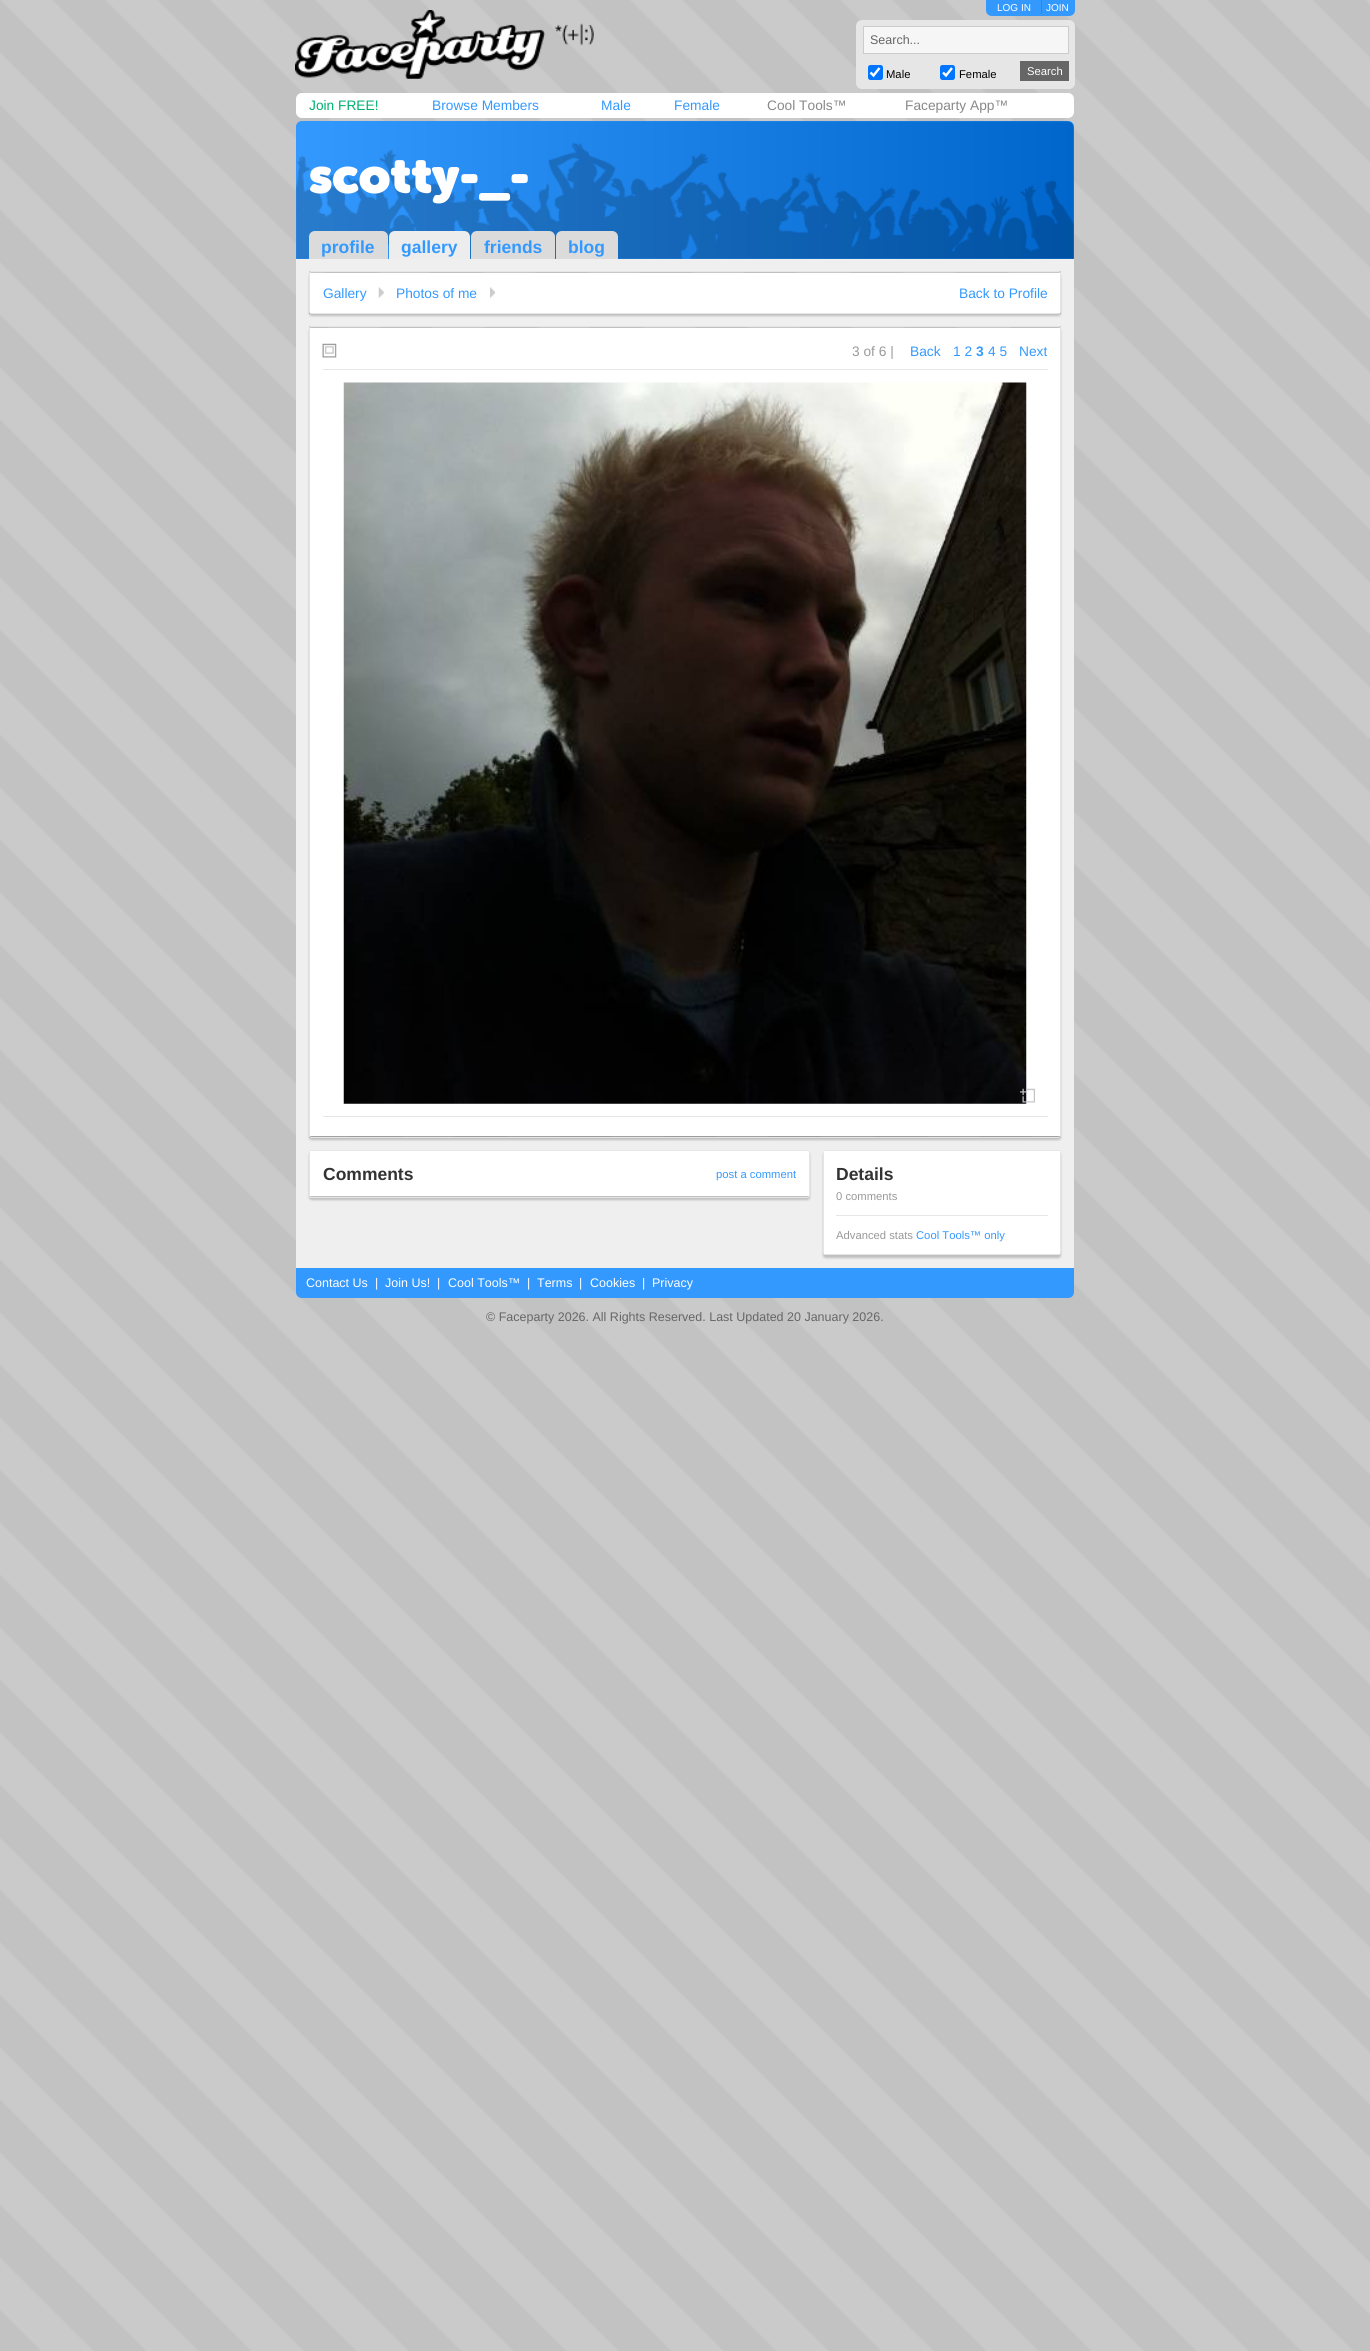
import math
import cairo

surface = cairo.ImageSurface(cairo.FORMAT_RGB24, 1370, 2351)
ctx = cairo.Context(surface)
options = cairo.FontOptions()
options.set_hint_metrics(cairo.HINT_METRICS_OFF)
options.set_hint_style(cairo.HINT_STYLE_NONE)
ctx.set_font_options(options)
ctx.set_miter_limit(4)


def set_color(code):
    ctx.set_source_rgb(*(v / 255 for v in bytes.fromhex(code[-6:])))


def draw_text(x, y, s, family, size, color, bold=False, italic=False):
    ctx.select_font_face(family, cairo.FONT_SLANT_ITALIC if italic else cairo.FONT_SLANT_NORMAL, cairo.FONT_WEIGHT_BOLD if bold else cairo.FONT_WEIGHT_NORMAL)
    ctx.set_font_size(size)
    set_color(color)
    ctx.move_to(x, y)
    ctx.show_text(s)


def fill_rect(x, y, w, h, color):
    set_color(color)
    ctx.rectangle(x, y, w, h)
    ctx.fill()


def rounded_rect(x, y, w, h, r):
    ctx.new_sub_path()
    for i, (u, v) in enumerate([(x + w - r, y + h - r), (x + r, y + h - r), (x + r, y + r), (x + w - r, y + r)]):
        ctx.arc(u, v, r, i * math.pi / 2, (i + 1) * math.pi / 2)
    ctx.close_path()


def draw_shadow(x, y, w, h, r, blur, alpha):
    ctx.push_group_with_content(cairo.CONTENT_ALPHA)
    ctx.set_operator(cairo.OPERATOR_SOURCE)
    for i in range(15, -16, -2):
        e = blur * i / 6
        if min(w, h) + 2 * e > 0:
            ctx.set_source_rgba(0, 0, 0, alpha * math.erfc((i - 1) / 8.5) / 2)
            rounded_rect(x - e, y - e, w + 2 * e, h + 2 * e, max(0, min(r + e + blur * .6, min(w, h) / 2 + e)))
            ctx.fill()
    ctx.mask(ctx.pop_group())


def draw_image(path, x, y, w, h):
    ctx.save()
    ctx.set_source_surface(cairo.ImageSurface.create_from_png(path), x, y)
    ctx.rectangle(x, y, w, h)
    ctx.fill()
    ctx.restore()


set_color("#ffffff")
ctx.paint()
draw_image("assets/img1.png", 0, 0, 1370, 2351)
draw_image("assets/img2.png", 295, 10, 299, 69)
set_color("#3399ff")
ctx.new_path()
ctx.move_to(986, 0)
ctx.line_to(1075, 0)
ctx.line_to(1075, 10)
ctx.curve_to(1075, 13.5, 1072.5, 16, 1069, 16)
ctx.line_to(992, 16)
ctx.curve_to(988.5, 16, 986, 13.5, 986, 10)
ctx.close_path()
ctx.fill()
fill_rect(1041, 0, 1, 14, "#2e89e5")
draw_text(997, 11, "LOG IN", "Liberation Sans", 10, "#ffffff")
draw_text(1046, 11, "JOIN", "Liberation Sans", 10, "#ffffff")
set_color("#e6e6e6")
rounded_rect(856, 20, 219, 69, 6)
ctx.fill()
set_color("#f6f6f6")
ctx.rectangle(863.5, 26.5, 205, 27)
ctx.fill_preserve()
set_color("#cccccc")
ctx.set_line_width(1)
ctx.stroke()
draw_text(870, 44, "Search...", "Liberation Sans", 12.5, "#666666")
set_color("#0075ff")
rounded_rect(868, 65, 15, 15, 2.5)
ctx.fill()
ctx.new_path()
ctx.move_to(870.5, 72.5)
ctx.line_to(873.5, 75.5)
ctx.line_to(879.5, 68)
set_color("#ffffff")
ctx.set_line_width(2.4)
ctx.stroke()
draw_text(886, 78, "Male", "Liberation Sans", 11.25, "#000000")
set_color("#0075ff")
rounded_rect(940, 65, 15, 15, 2.5)
ctx.fill()
ctx.new_path()
ctx.move_to(943, 72.5)
ctx.line_to(946, 75.5)
ctx.line_to(952, 68)
set_color("#ffffff")
ctx.stroke()
draw_text(959, 78, "Female", "Liberation Sans", 11.25, "#000000")
fill_rect(1020, 61, 49, 20, "#666666")
draw_text(1027, 75, "Search", "Liberation Sans", 11.25, "#ffffff")
rounded_rect(296, 93, 778, 25, 6)
ctx.fill()
draw_text(309, 110, "Join FREE!", "Liberation Sans", 13.75, "#00b070")
draw_text(432, 110, "Browse Members", "Liberation Sans", 13.75, "#3399ff")
draw_text(601, 110, "Male", "Liberation Sans", 13.75, "#3399ff")
draw_text(674, 110, "Female", "Liberation Sans", 13.75, "#3399ff")
draw_text(767, 110, "Cool Tools™", "Liberation Sans", 13.75, "#888888")
draw_text(905, 110, "Faceparty App™", "Liberation Sans", 13.75, "#888888")
set_color("#3399ff")
ctx.new_path()
ctx.move_to(302, 121)
ctx.line_to(1068, 121)
ctx.curve_to(1071.5, 121, 1074, 123.5, 1074, 127)
ctx.line_to(1074, 259)
ctx.line_to(296, 259)
ctx.line_to(296, 127)
ctx.curve_to(296, 123.5, 298.5, 121, 302, 121)
ctx.close_path()
ctx.fill()
draw_image("assets/img3.png", 296, 121, 778, 138)
draw_text(309, 193, "scotty-_-", "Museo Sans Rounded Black", 50, "#ffffff")
set_color("#dbdbdb")
ctx.new_path()
ctx.move_to(315, 231)
ctx.line_to(382, 231)
ctx.curve_to(385.5, 231, 388, 233.5, 388, 237)
ctx.line_to(388, 259)
ctx.line_to(309, 259)
ctx.line_to(309, 237)
ctx.curve_to(309, 233.5, 311.5, 231, 315, 231)
ctx.close_path()
ctx.fill()
draw_text(321, 253, "profile", "Liberation Sans", 17.5, "#3399ff", bold=True)
set_color("#ededed")
ctx.new_path()
ctx.move_to(395, 231)
ctx.line_to(464, 231)
ctx.curve_to(467.5, 231, 470, 233.5, 470, 237)
ctx.line_to(470, 259)
ctx.line_to(389, 259)
ctx.line_to(389, 237)
ctx.curve_to(389, 233.5, 391.5, 231, 395, 231)
ctx.close_path()
ctx.fill()
draw_text(401, 253, "gallery", "Liberation Sans", 17.5, "#3399ff", bold=True)
set_color("#dbdbdb")
ctx.new_path()
ctx.move_to(477, 231)
ctx.line_to(549, 231)
ctx.curve_to(552.5, 231, 555, 233.5, 555, 237)
ctx.line_to(555, 259)
ctx.line_to(471, 259)
ctx.line_to(471, 237)
ctx.curve_to(471, 233.5, 473.5, 231, 477, 231)
ctx.close_path()
ctx.fill()
draw_text(484, 253, "friends", "Liberation Sans", 17.5, "#3399ff", bold=True)
set_color("#dbdbdb")
ctx.new_path()
ctx.move_to(562, 231)
ctx.line_to(612, 231)
ctx.curve_to(615.5, 231, 618, 233.5, 618, 237)
ctx.line_to(618, 259)
ctx.line_to(556, 259)
ctx.line_to(556, 237)
ctx.curve_to(556, 233.5, 558.5, 231, 562, 231)
ctx.close_path()
ctx.fill()
draw_text(568, 253, "blog", "Liberation Sans", 17.5, "#3399ff", bold=True)
fill_rect(296, 259, 778, 12, "#efefef")
fill_rect(296, 271, 13, 43, "#efefef")
fill_rect(1061, 271, 13, 43, "#efefef")
fill_rect(296, 314, 778, 12, "#efefef")
set_color("#000000")
draw_shadow(309, 274, 752, 42, 2.5, 1, 0.2)
rounded_rect(309.5, 271.5, 751, 42, 2)
set_color("#e5e5e5")
ctx.set_line_width(1)
ctx.stroke()
fill_rect(310, 273, 750, 40, "#ffffff")
draw_text(323, 298, "Gallery", "Liberation Sans", 13.75, "#3399ff")
draw_image("assets/img4.png", 378, 287, 6, 11)
draw_text(396, 298, "Photos of me", "Liberation Sans", 13.75, "#3399ff")
draw_image("assets/img5.png", 490, 287, 5, 11)
draw_text(959, 298, "Back to Profile", "Liberation Sans", 13.75, "#3399ff")
fill_rect(296, 326, 13, 812, "#efefef")
fill_rect(1061, 326, 13, 812, "#efefef")
fill_rect(296, 1138, 778, 12, "#efefef")
set_color("#000000")
draw_shadow(309, 329, 752, 811, 2.5, 1, 0.2)
rounded_rect(309.5, 326.5, 751, 811, 2)
set_color("#e5e5e5")
ctx.stroke()
fill_rect(310, 328, 750, 808, "#ffffff")
draw_image("assets/img6.png", 322, 343, 15, 15)
draw_text(852, 356, "3 of 6 |", "Liberation Sans", 13.75, "#999999")
draw_text(910, 356, "Back", "Liberation Sans", 13.75, "#3399ff")
draw_text(953, 356, "1 2", "Liberation Sans", 13.75, "#3399ff")
draw_text(976, 356, "3", "Liberation Sans", 13.75, "#3399ff", bold=True)
draw_text(988, 356, "4 5", "Liberation Sans", 13.75, "#3399ff")
draw_text(1019, 356, "Next", "Liberation Sans", 13.75, "#3399ff")
fill_rect(323, 369, 725, 1, "#e6e6e6")
draw_image("assets/img7.png", 343, 382, 684, 722)
draw_image("assets/img8.png", 1020, 1088, 15, 15)
fill_rect(323, 1116, 725, 1, "#e6e6e6")
fill_rect(296, 1150, 778, 118, "#efefef")
set_color("#000000")
draw_shadow(309, 1153, 501, 47, 2.5, 1, 0.2)
rounded_rect(309.5, 1150.5, 500, 47, 2)
set_color("#e5e5e5")
ctx.stroke()
fill_rect(310, 1151, 499, 45, "#ffffff")
draw_text(323, 1180, "Comments", "Liberation Sans", 17.5, "#333333", bold=True)
draw_text(716, 1178, "post a comment", "Liberation Sans", 11.25, "#3399ff")
set_color("#000000")
draw_shadow(823, 1153, 238, 105, 2.5, 1, 0.2)
rounded_rect(823.5, 1150.5, 237, 104, 2)
set_color("#e5e5e5")
ctx.stroke()
fill_rect(824, 1151, 236, 103, "#ffffff")
draw_text(836, 1180, "Details", "Liberation Sans", 17.5, "#333333", bold=True)
draw_text(836, 1200, "0 comments", "Liberation Sans", 11.25, "#999999")
fill_rect(836, 1215, 212, 1, "#e6e6e6")
draw_text(836, 1239, "Advanced stats", "Liberation Sans", 11.25, "#999999")
draw_text(916, 1239, "Cool Tools™ only", "Liberation Sans", 11.25, "#3399ff")
ctx.new_path()
ctx.move_to(296, 1268)
ctx.line_to(1074, 1268)
ctx.line_to(1074, 1292)
ctx.curve_to(1074, 1295.5, 1071.5, 1298, 1068, 1298)
ctx.line_to(302, 1298)
ctx.curve_to(298.5, 1298, 296, 1295.5, 296, 1292)
ctx.close_path()
ctx.fill()
draw_text(306, 1287, "Contact Us", "Liberation Sans", 12.5, "#ffffff")
draw_text(375, 1287, "|", "Liberation Sans", 12.5, "#ffffff")
draw_text(385, 1287, "Join Us!", "Liberation Sans", 12.5, "#ffffff")
draw_text(437, 1287, "|", "Liberation Sans", 12.5, "#ffffff")
draw_text(448, 1287, "Cool Tools™", "Liberation Sans", 12.5, "#ffffff")
draw_text(527, 1287, "|", "Liberation Sans", 12.5, "#ffffff")
draw_text(537, 1287, "Terms", "Liberation Sans", 12.5, "#ffffff")
draw_text(579, 1287, "|", "Liberation Sans", 12.5, "#ffffff")
draw_text(590, 1287, "Cookies", "Liberation Sans", 12.5, "#ffffff")
draw_text(642, 1287, "|", "Liberation Sans", 12.5, "#ffffff")
draw_text(652, 1287, "Privacy", "Liberation Sans", 12.5, "#ffffff")
draw_text(486, 1321, "© Faceparty 2026. All Rights Reserved. Last Updated 20 January 2026.", "Liberation Sans", 12.5, "#666666")
surface.write_to_png("output.png")
